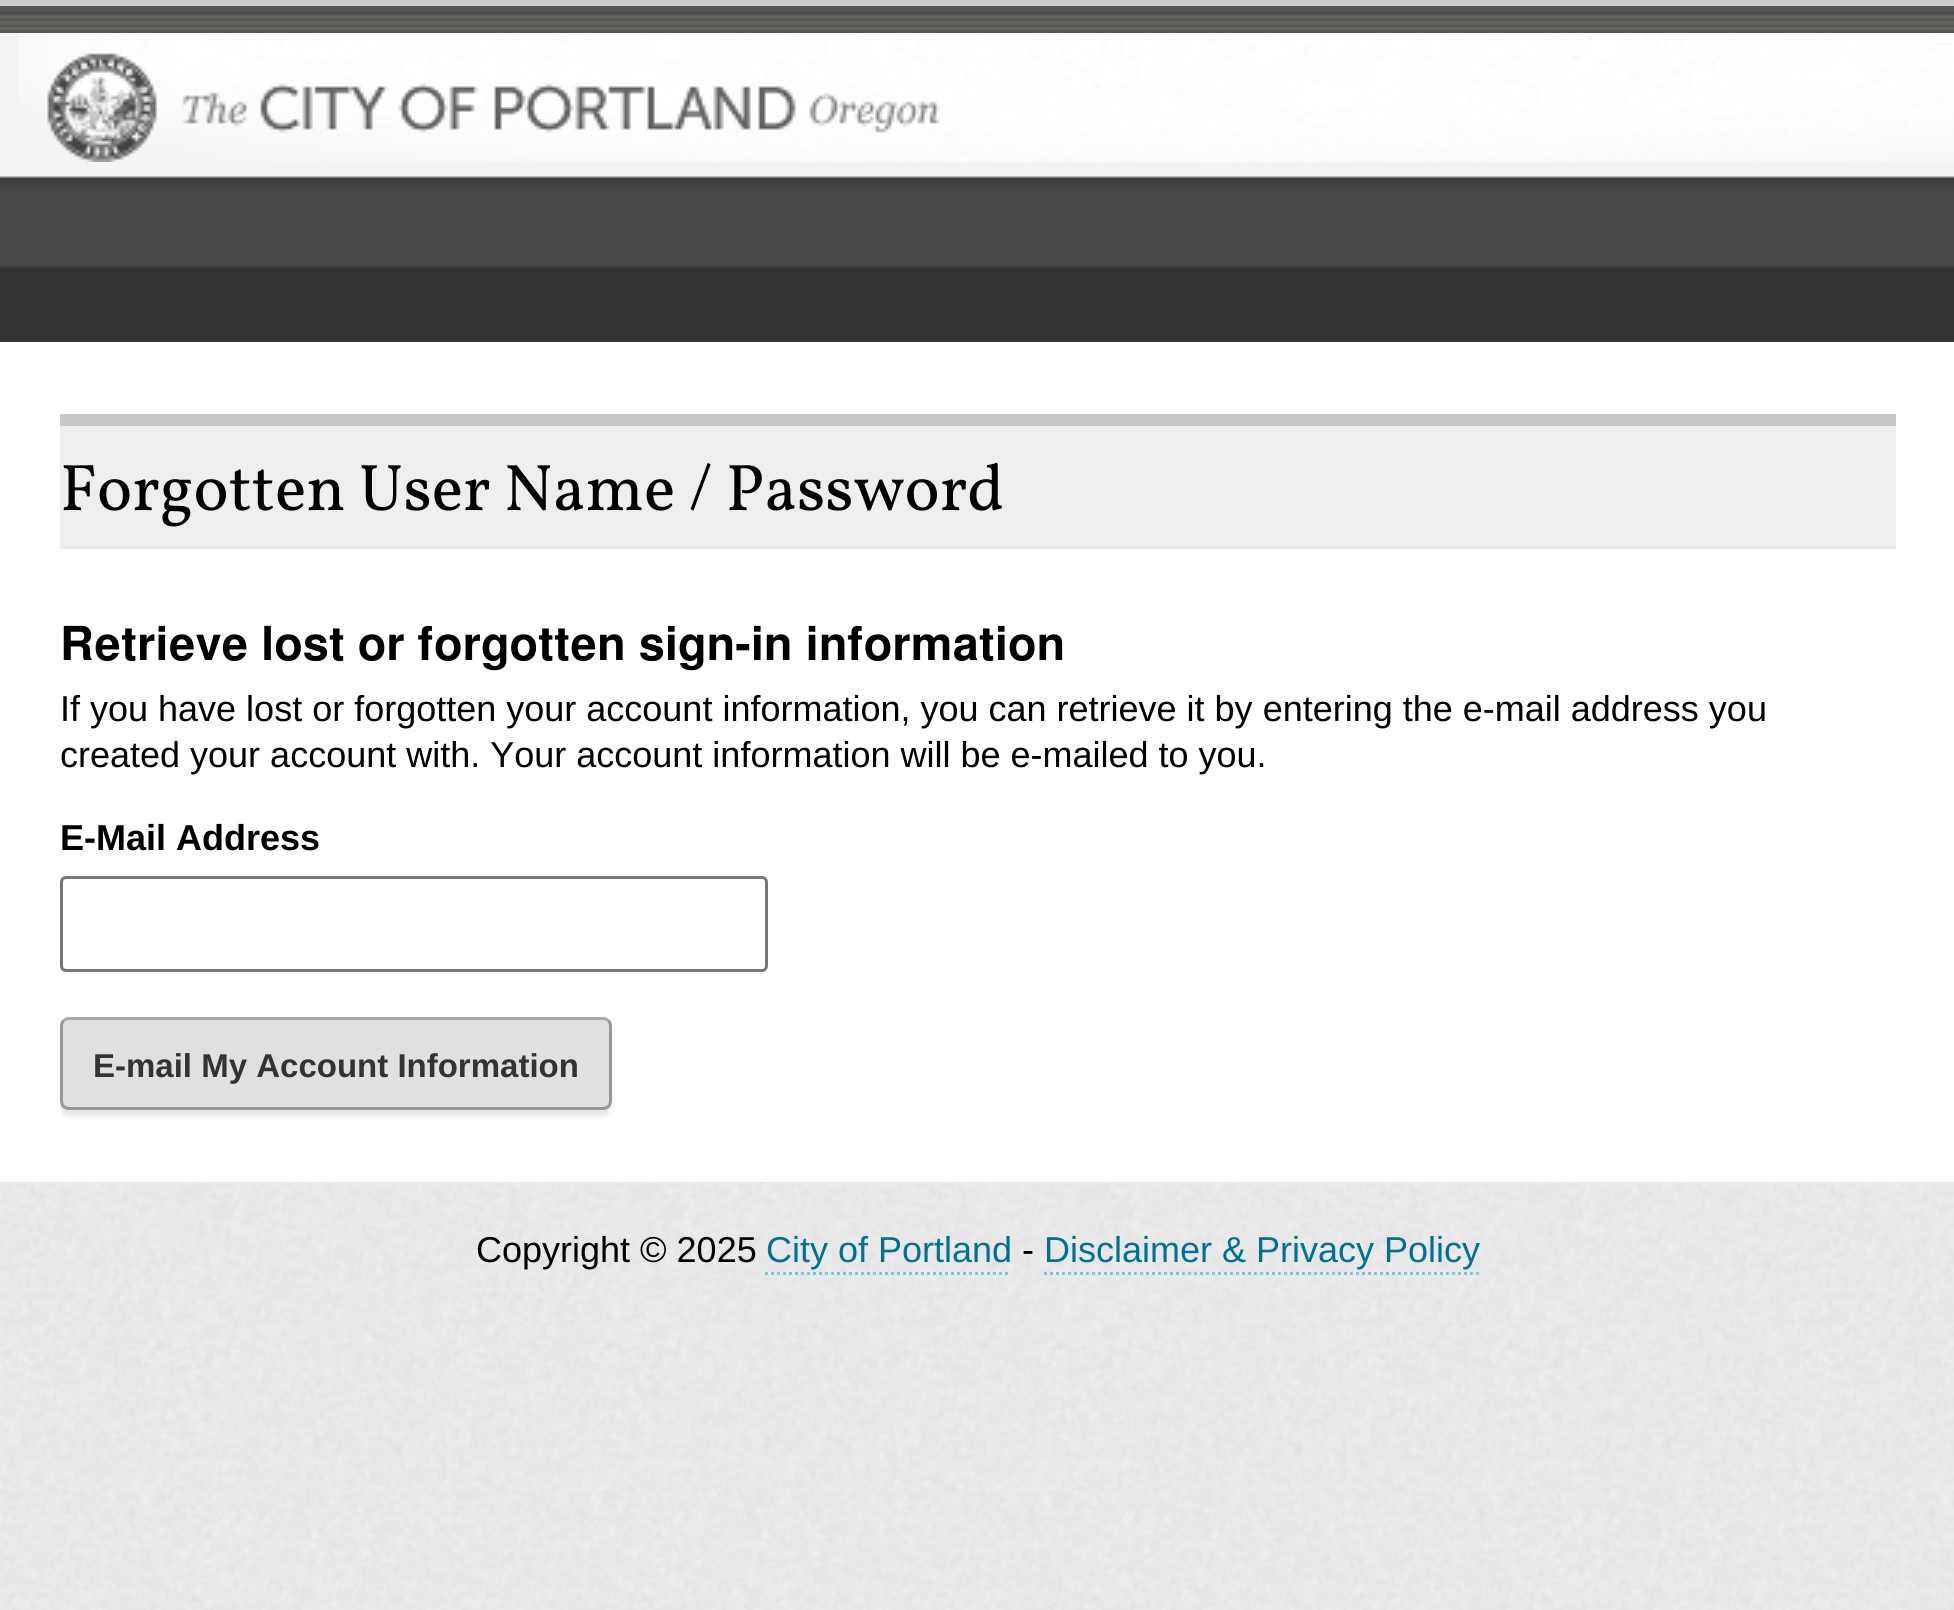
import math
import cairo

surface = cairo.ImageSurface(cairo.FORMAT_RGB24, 1954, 1610)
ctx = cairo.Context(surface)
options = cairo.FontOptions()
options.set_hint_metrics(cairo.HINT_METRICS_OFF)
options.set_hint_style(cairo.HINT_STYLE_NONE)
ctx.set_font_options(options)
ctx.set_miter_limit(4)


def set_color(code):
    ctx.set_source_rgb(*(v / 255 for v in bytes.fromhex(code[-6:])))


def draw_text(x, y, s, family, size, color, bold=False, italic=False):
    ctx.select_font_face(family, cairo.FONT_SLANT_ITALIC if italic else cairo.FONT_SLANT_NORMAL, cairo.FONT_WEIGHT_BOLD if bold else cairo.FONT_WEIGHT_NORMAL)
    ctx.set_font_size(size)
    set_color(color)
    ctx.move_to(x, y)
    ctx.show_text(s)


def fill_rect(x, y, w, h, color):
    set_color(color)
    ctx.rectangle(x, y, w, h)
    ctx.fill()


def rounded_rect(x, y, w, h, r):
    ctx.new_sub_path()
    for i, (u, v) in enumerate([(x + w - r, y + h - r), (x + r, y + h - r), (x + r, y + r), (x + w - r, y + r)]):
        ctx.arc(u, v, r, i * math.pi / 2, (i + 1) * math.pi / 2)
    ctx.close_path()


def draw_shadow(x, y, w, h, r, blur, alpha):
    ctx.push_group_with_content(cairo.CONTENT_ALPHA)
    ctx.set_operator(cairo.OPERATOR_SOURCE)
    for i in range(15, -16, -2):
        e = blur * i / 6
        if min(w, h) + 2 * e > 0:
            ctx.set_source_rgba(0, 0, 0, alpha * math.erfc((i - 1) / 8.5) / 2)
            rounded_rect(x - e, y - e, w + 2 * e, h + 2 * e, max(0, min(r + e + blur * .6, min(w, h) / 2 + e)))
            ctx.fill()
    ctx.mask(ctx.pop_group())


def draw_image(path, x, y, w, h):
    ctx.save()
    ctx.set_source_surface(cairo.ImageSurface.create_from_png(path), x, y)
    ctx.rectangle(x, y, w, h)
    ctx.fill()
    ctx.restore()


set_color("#ffffff")
ctx.paint()
draw_image("assets/img1.png", 0, 1182, 1954, 428)
draw_image("assets/img2.png", 0, 33, 1954, 309)
fill_rect(0, 0, 1954, 6, "#cccccc")
draw_image("assets/img3.png", 0, 6, 1954, 27)
draw_image("assets/img4.png", 18, 33, 1936, 129)
draw_image("assets/img5.png", 47, 53, 893, 109)
fill_rect(60, 426, 1836, 120, "#eeeeee")
fill_rect(60, 414, 1836, 12, "#c9c9c9")
fill_rect(60, 546, 1836, 3, "#e8e8e8")
draw_text(60, 510, "Forgotten User Name / Password", "Vollkorn", 66, "#000000")
draw_text(60, 660, "Retrieve lost or forgotten sign-in information", "FreeSans SemiBold", 46.8, "#000000")
draw_text(60, 721, "If you have lost or forgotten your account information, you can retrieve it by entering the e-mail address you", "Liberation Sans", 36, "#000000")
draw_text(60, 767, "created your account with. Your account information will be e-mailed to you.", "Liberation Sans", 36, "#000000")
draw_text(60, 850, "E-Mail Address", "Liberation Sans", 36, "#000000", bold=True)
rounded_rect(61.5, 877.5, 705, 93, 4.5)
set_color("#767676")
ctx.set_line_width(3)
ctx.stroke()
ctx.save()
ctx.rectangle(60, 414, 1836, 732)
ctx.clip()
set_color("#000000")
draw_shadow(60, 1023, 552, 93, 9, 3, 0.1)
ctx.restore()
set_color("#dee0e2")
rounded_rect(60, 1017, 552, 93, 9)
ctx.fill()
ctx.new_path()
ctx.move_to(63.5, 1020.5)
ctx.curve_to(65, 1019.5, 67, 1018.5, 69, 1018.5)
ctx.line_to(603, 1018.5)
ctx.curve_to(605, 1018.5, 607, 1019.5, 608.5, 1020.5)
ctx.set_source_rgba(0, 0, 0, 0.25)
ctx.stroke()
ctx.new_path()
ctx.move_to(608.5, 1020.5)
ctx.curve_to(609.5, 1022, 610.5, 1024, 610.5, 1026)
ctx.line_to(610.5, 1101)
ctx.curve_to(610.5, 1103, 609.5, 1105, 608.5, 1106.5)
ctx.curve_to(607, 1107.5, 605, 1108.5, 603, 1108.5)
ctx.line_to(69, 1108.5)
ctx.curve_to(67, 1108.5, 65, 1107.5, 63.5, 1106.5)
ctx.curve_to(62.5, 1105, 61.5, 1103, 61.5, 1101)
ctx.line_to(61.5, 1026)
ctx.curve_to(61.5, 1024, 62.5, 1022, 63.5, 1020.5)
set_color("#999999")
ctx.stroke()
draw_text(93, 1077, "E-mail My Account Information", "Liberation Sans", 33, "#333333", bold=True)
draw_text(476, 1262, "Copyright © 2025", "Liberation Sans", 36, "#000000")
draw_text(766, 1262, "City of Portland", "Liberation Sans", 36, "#007094")
ctx.new_path()
ctx.move_to(765, 1273.5)
ctx.line_to(1011, 1273.5)
set_color("#79c7dc")
ctx.set_dash([3, 3])
ctx.stroke()
draw_text(1022, 1262, "-", "Liberation Sans", 36, "#000000")
draw_text(1044, 1262, "Disclaimer & Privacy Policy", "Liberation Sans", 36, "#007094")
ctx.new_path()
ctx.move_to(1044, 1273.5)
ctx.line_to(1479, 1273.5)
set_color("#79c7dc")
ctx.stroke()
surface.write_to_png("output.png")
